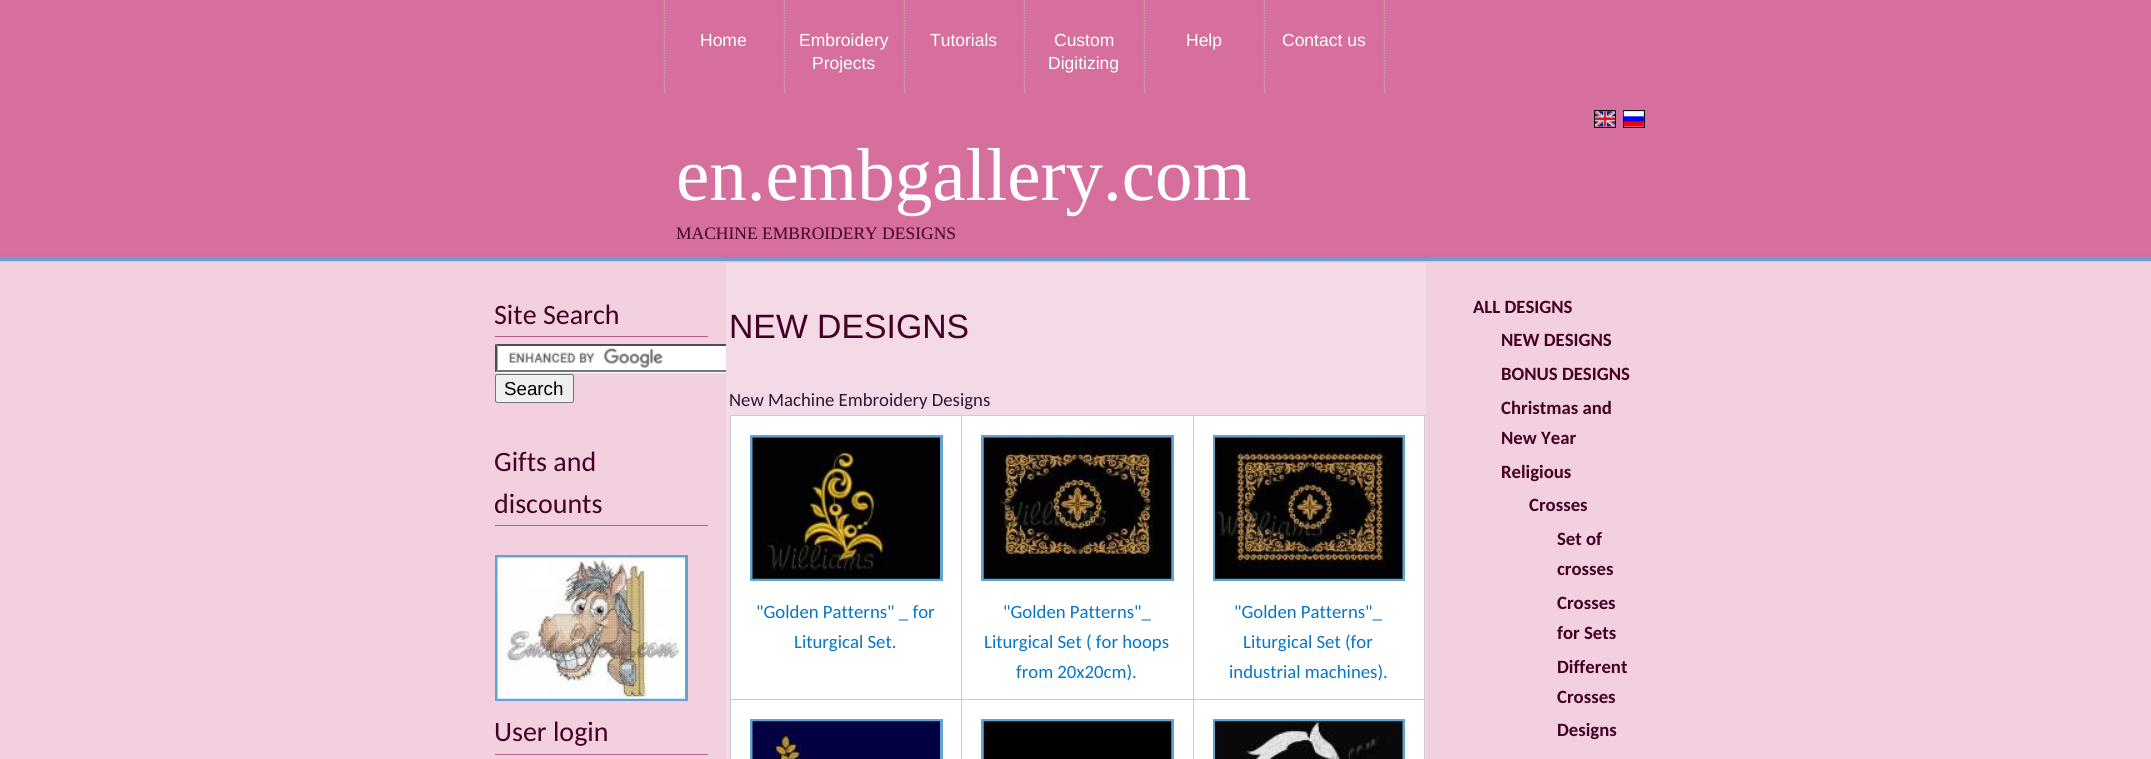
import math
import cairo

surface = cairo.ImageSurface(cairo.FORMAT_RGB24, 2151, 759)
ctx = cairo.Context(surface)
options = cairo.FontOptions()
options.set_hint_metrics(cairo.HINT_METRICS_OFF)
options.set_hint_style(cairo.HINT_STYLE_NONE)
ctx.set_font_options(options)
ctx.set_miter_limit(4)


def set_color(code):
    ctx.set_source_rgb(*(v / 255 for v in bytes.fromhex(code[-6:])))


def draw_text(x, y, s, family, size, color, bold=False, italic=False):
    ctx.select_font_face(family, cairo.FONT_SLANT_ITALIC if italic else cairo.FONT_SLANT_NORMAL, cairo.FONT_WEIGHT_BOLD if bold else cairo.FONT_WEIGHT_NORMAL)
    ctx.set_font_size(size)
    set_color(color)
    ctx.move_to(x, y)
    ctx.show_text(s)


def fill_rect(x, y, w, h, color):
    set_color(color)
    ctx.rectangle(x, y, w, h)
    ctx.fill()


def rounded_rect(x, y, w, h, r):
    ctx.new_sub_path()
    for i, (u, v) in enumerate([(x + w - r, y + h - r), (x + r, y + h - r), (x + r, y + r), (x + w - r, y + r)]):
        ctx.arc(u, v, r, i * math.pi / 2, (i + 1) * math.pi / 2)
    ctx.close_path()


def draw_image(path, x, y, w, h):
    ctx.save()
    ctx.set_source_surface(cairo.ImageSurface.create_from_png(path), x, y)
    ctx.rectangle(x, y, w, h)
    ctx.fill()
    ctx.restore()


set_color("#f2d0df")
ctx.paint()
draw_image("assets/img1.png", 0, 0, 2151, 262)
ctx.new_path()
ctx.move_to(664.5, 0)
ctx.line_to(664.5, 95)
set_color("#c3adae")
ctx.set_line_width(1.2)
ctx.set_dash([1.25, 1.25])
ctx.stroke()
ctx.new_path()
ctx.move_to(784.5, 0)
ctx.line_to(784.5, 95)
ctx.stroke()
draw_text(700, 46, "Home", "Liberation Sans", 17.5, "#ffffff")
ctx.new_path()
ctx.move_to(904.5, 0)
ctx.line_to(904.5, 95)
set_color("#c3adae")
ctx.stroke()
draw_text(799, 46, "Embroidery", "Liberation Sans", 17.5, "#ffffff")
draw_text(812, 69, "Projects", "Liberation Sans", 17.5, "#ffffff")
ctx.new_path()
ctx.move_to(1024.5, 0)
ctx.line_to(1024.5, 95)
set_color("#c3adae")
ctx.stroke()
draw_text(930, 46, "Tutorials", "Liberation Sans", 17.5, "#ffffff")
ctx.new_path()
ctx.move_to(1144.5, 0)
ctx.line_to(1144.5, 95)
set_color("#c3adae")
ctx.stroke()
draw_text(1054, 46, "Custom", "Liberation Sans", 17.5, "#ffffff")
draw_text(1048, 69, "Digitizing", "Liberation Sans", 17.5, "#ffffff")
ctx.new_path()
ctx.move_to(1264.5, 0)
ctx.line_to(1264.5, 95)
set_color("#c3adae")
ctx.stroke()
draw_text(1186, 46, "Help", "Liberation Sans", 17.5, "#ffffff")
ctx.new_path()
ctx.move_to(1384.5, 0)
ctx.line_to(1384.5, 95)
set_color("#c3adae")
ctx.stroke()
draw_text(1282, 46, "Contact us", "Liberation Sans", 17.5, "#ffffff")
ctx.rectangle(1594.5, 110.5, 21, 17)
set_color("#000000")
ctx.set_line_width(1)
ctx.set_dash([])
ctx.stroke()
draw_image("assets/img2.png", 1595, 111, 20, 16)
ctx.rectangle(1623.5, 110.5, 21, 17)
ctx.stroke()
draw_image("assets/img3.png", 1623, 111, 21, 16)
draw_text(676, 200, "en.embgallery.com", "Liberation Serif", 75, "#ffffff")
draw_text(676, 239, "MACHINE EMBROIDERY DESIGNS", "Liberation Serif", 17.5, "#440022")
fill_rect(495, 336, 213, 1, "#c15b8b")
draw_text(494, 324, "Site Search", "Carlito", 28, "#440022")
fill_rect(495, 344, 231, 29, "#ffffff")
draw_image("assets/img4.png", 508, 348, 155, 20)
ctx.save()
ctx.rectangle(476, 263, 250, 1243)
ctx.clip()
set_color("#4f4f4f")
ctx.new_path()
ctx.move_to(495, 344)
ctx.line_to(731, 344)
ctx.line_to(729, 346)
ctx.line_to(498, 346)
ctx.close_path()
ctx.fill()
set_color("#767676")
ctx.new_path()
ctx.move_to(731, 372)
ctx.line_to(495, 372)
ctx.line_to(498, 370)
ctx.line_to(729, 370)
ctx.close_path()
ctx.fill()
ctx.restore()
set_color("#4f4f4f")
ctx.new_path()
ctx.move_to(495, 372.5)
ctx.line_to(495, 344)
ctx.line_to(497.5, 346)
ctx.line_to(497.5, 370)
ctx.close_path()
ctx.fill()
set_color("#efefef")
rounded_rect(495.5, 374.5, 78, 28, 2)
ctx.fill_preserve()
set_color("#767676")
ctx.stroke()
draw_text(504, 395, "Search", "Liberation Sans", 18.75, "#000000")
fill_rect(495, 525, 213, 1, "#c15b8b")
draw_text(494, 471, "Gifts and", "Carlito", 28, "#440022")
draw_text(494, 513, "discounts", "Carlito", 28, "#440022")
ctx.rectangle(496.5, 556.5, 190, 143)
set_color("#63a3d1")
ctx.set_line_width(3)
ctx.stroke()
draw_image("assets/img5.png", 497, 557, 188, 142)
fill_rect(495, 754, 213, 1, "#c15b8b")
draw_text(494, 741, "User login", "Carlito", 28, "#440022")
fill_rect(726, 263, 700, 496, "#f4d9e6")
draw_text(729, 338, "NEW DESIGNS", "Liberation Sans", 33.75, "#440022")
draw_text(729, 406, "New Machine Embroidery Designs", "Carlito", 18.75, "#2e1737")
fill_rect(730, 415, 695, 1, "#cccccc")
fill_rect(730, 415, 1, 344, "#cccccc")
fill_rect(731, 700, 230, 59, "#ffffff")
fill_rect(961, 699, 1, 60, "#cccccc")
ctx.rectangle(751.5, 720.5, 190, 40)
set_color("#63a3d1")
ctx.stroke()
draw_image("assets/img6.png", 752, 721, 188, 38)
fill_rect(962, 700, 231, 59, "#ffffff")
fill_rect(1193, 699, 1, 60, "#cccccc")
ctx.rectangle(982.5, 720.5, 190, 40)
set_color("#63a3d1")
ctx.stroke()
draw_image("assets/img7.png", 983, 721, 189, 38)
fill_rect(1194, 700, 230, 59, "#ffffff")
fill_rect(1424, 415, 1, 344, "#cccccc")
ctx.rectangle(1214.5, 720.5, 189, 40)
set_color("#63a3d1")
ctx.stroke()
draw_image("assets/img8.png", 1215, 721, 188, 38)
fill_rect(731, 416, 230, 283, "#ffffff")
fill_rect(1193, 699, 232, 1, "#cccccc")
fill_rect(1193, 415, 1, 285, "#cccccc")
fill_rect(961, 699, 233, 1, "#cccccc")
fill_rect(961, 415, 1, 285, "#cccccc")
fill_rect(730, 699, 233, 1, "#cccccc")
ctx.rectangle(751.5, 436.5, 190, 143)
set_color("#63a3d1")
ctx.stroke()
draw_image("assets/img9.png", 752, 437, 188, 142)
draw_text(756, 618, "\"Golden Patterns\" _ for", "Carlito", 18.75, "#0576c7")
draw_text(794, 648, "Liturgical Set.", "Carlito", 18.75, "#0576c7")
fill_rect(962, 416, 231, 283, "#ffffff")
ctx.rectangle(982.5, 436.5, 190, 143)
set_color("#63a3d1")
ctx.stroke()
draw_image("assets/img10.png", 983, 437, 189, 142)
draw_text(1003, 618, "\"Golden Patterns\"_", "Carlito", 18.75, "#0576c7")
draw_text(984, 648, "Liturgical Set ( for hoops", "Carlito", 18.75, "#0576c7")
draw_text(1016, 678, "from 20x20cm).", "Carlito", 18.75, "#0576c7")
fill_rect(1194, 416, 230, 283, "#ffffff")
ctx.rectangle(1214.5, 436.5, 189, 143)
set_color("#63a3d1")
ctx.stroke()
draw_image("assets/img11.png", 1215, 437, 188, 142)
draw_text(1234, 618, "\"Golden Patterns\"_", "Carlito", 18.75, "#0576c7")
draw_text(1243, 648, "Liturgical Set (for", "Carlito", 18.75, "#0576c7")
draw_text(1229, 678, "industrial machines).", "Carlito", 18.75, "#0576c7")
draw_text(1473, 313, "ALL DESIGNS", "Carlito", 18.75, "#440022", bold=True)
draw_text(1501, 346, "NEW DESIGNS", "Carlito", 18.75, "#440022", bold=True)
draw_text(1501, 380, "BONUS DESIGNS", "Carlito", 18.75, "#440022", bold=True)
draw_text(1501, 414, "Christmas and", "Carlito", 18.75, "#440022", bold=True)
draw_text(1501, 444, "New Year", "Carlito", 18.75, "#440022", bold=True)
draw_text(1501, 478, "Religious", "Carlito", 18.75, "#440022", bold=True)
draw_text(1529, 511, "Crosses", "Carlito", 18.75, "#440022", bold=True)
draw_text(1557, 545, "Set of", "Carlito", 18.75, "#440022", bold=True)
draw_text(1557, 575, "crosses", "Carlito", 18.75, "#440022", bold=True)
draw_text(1557, 609, "Crosses", "Carlito", 18.75, "#440022", bold=True)
draw_text(1557, 639, "for Sets", "Carlito", 18.75, "#440022", bold=True)
draw_text(1557, 673, "Different", "Carlito", 18.75, "#440022", bold=True)
draw_text(1557, 703, "Crosses", "Carlito", 18.75, "#440022", bold=True)
draw_text(1557, 736, "Designs", "Carlito", 18.75, "#440022", bold=True)
surface.write_to_png("output.png")
